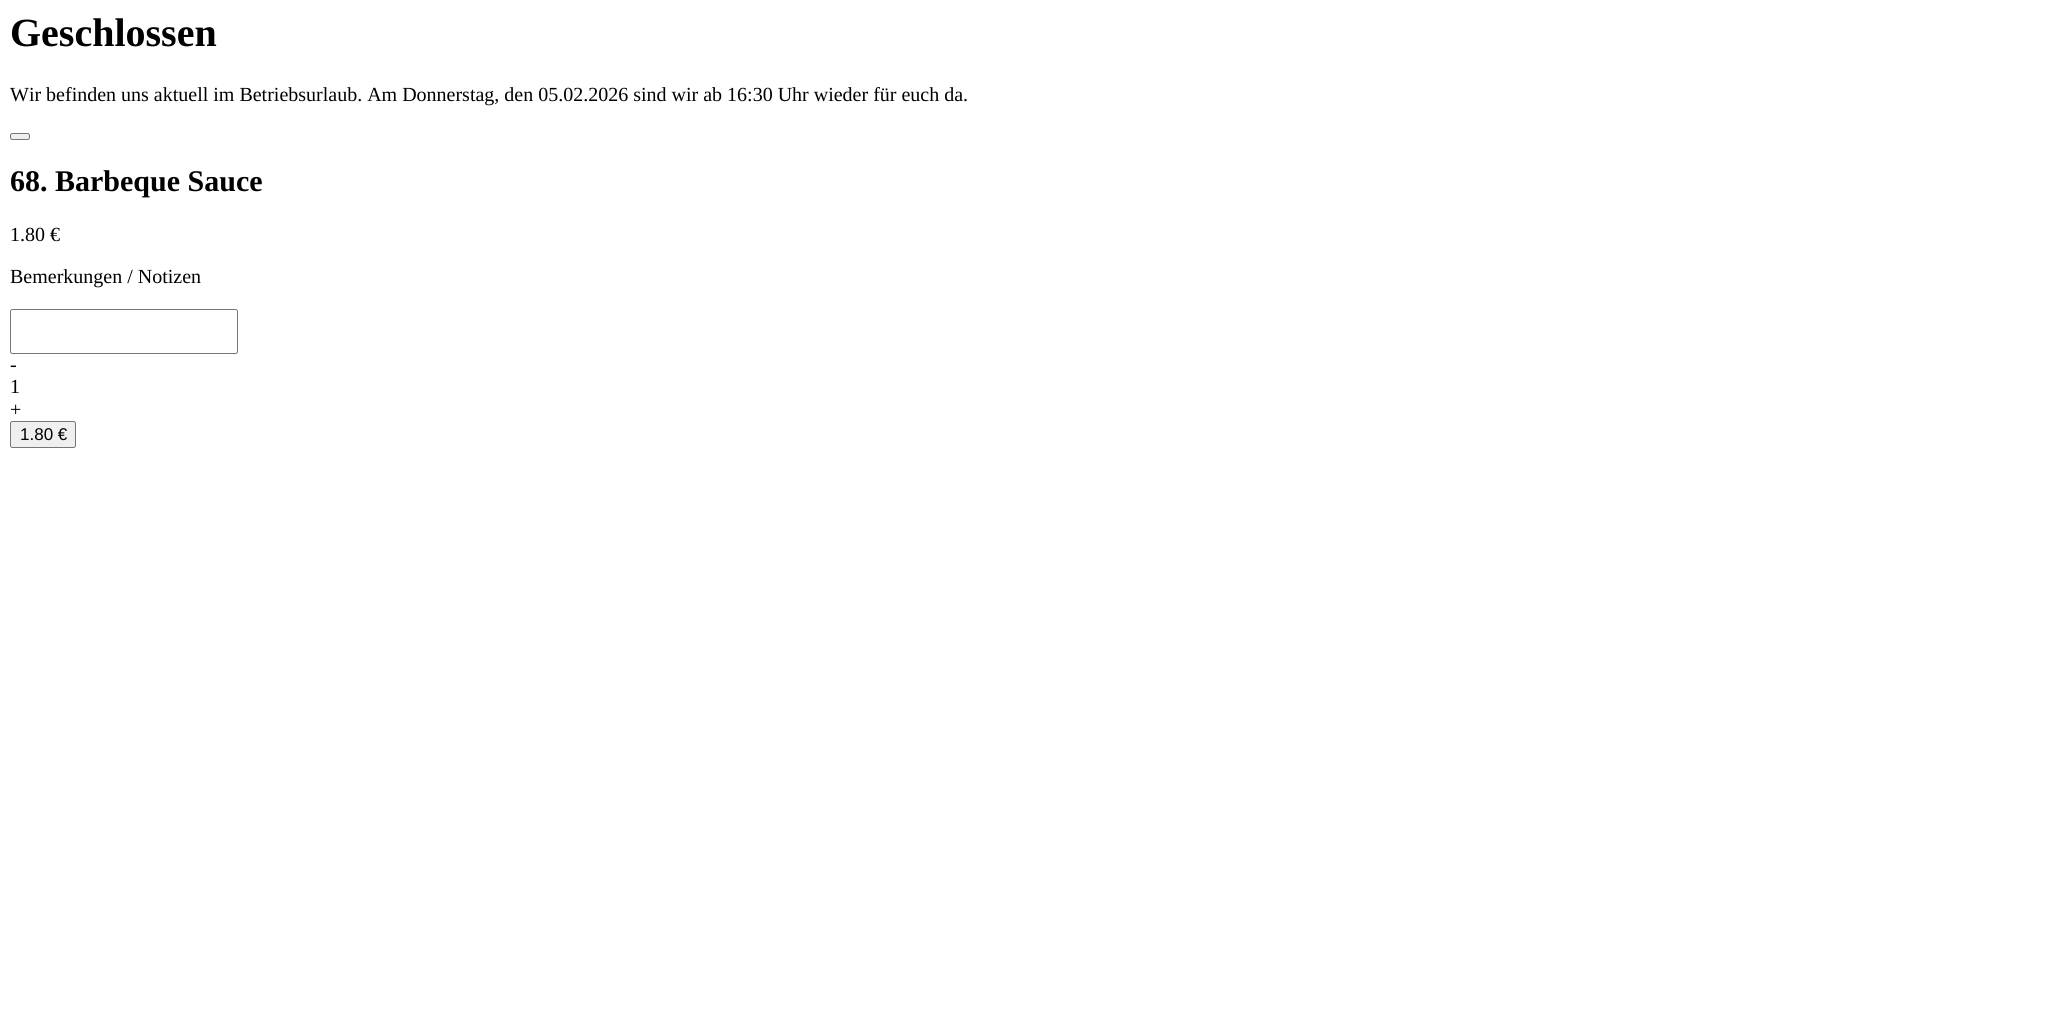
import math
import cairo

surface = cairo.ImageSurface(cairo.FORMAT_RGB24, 2059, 1027)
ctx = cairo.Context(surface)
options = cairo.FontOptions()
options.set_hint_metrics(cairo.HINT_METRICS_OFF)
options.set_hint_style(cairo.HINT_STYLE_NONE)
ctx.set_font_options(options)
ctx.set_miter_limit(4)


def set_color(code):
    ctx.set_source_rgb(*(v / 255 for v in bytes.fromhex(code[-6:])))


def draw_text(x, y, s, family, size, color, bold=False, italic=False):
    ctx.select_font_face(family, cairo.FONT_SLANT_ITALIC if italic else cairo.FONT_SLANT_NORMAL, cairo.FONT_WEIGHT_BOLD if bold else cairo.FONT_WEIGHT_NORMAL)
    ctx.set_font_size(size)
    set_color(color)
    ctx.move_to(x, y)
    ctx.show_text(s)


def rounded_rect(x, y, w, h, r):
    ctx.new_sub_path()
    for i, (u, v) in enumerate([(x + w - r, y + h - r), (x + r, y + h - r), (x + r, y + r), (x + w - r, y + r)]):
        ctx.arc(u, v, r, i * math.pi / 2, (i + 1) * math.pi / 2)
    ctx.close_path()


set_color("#ffffff")
ctx.paint()
draw_text(10, 46, "Geschlossen", "Liberation Serif", 40, "#000000", bold=True)
draw_text(10, 101, "Wir befinden uns aktuell im Betriebsurlaub. Am Donnerstag, den 05.02.2026 sind wir ab 16:30 Uhr wieder für euch da.", "Liberation Serif", 20, "#000000")
set_color("#efefef")
rounded_rect(10.5, 133.5, 19, 6, 2)
ctx.fill_preserve()
set_color("#767676")
ctx.set_line_width(1)
ctx.stroke()
draw_text(10, 191, "68. Barbeque Sauce", "Liberation Serif", 30, "#000000", bold=True)
draw_text(10, 241, "1.80 €", "Liberation Serif", 20, "#000000")
draw_text(10, 283, "Bemerkungen / Notizen", "Liberation Serif", 20, "#000000")
rounded_rect(10.5, 309.5, 227, 44, 2)
set_color("#767676")
ctx.stroke()
draw_text(10, 371, "-", "Liberation Serif", 20, "#000000")
draw_text(10, 393, "1", "Liberation Serif", 20, "#000000")
draw_text(10, 416, "+", "Liberation Serif", 20, "#000000")
set_color("#efefef")
rounded_rect(10.5, 421.5, 65, 26, 2)
ctx.fill_preserve()
set_color("#767676")
ctx.stroke()
draw_text(20, 440, "1.80 €", "Liberation Sans", 17, "#000000")
surface.write_to_png("output.png")
